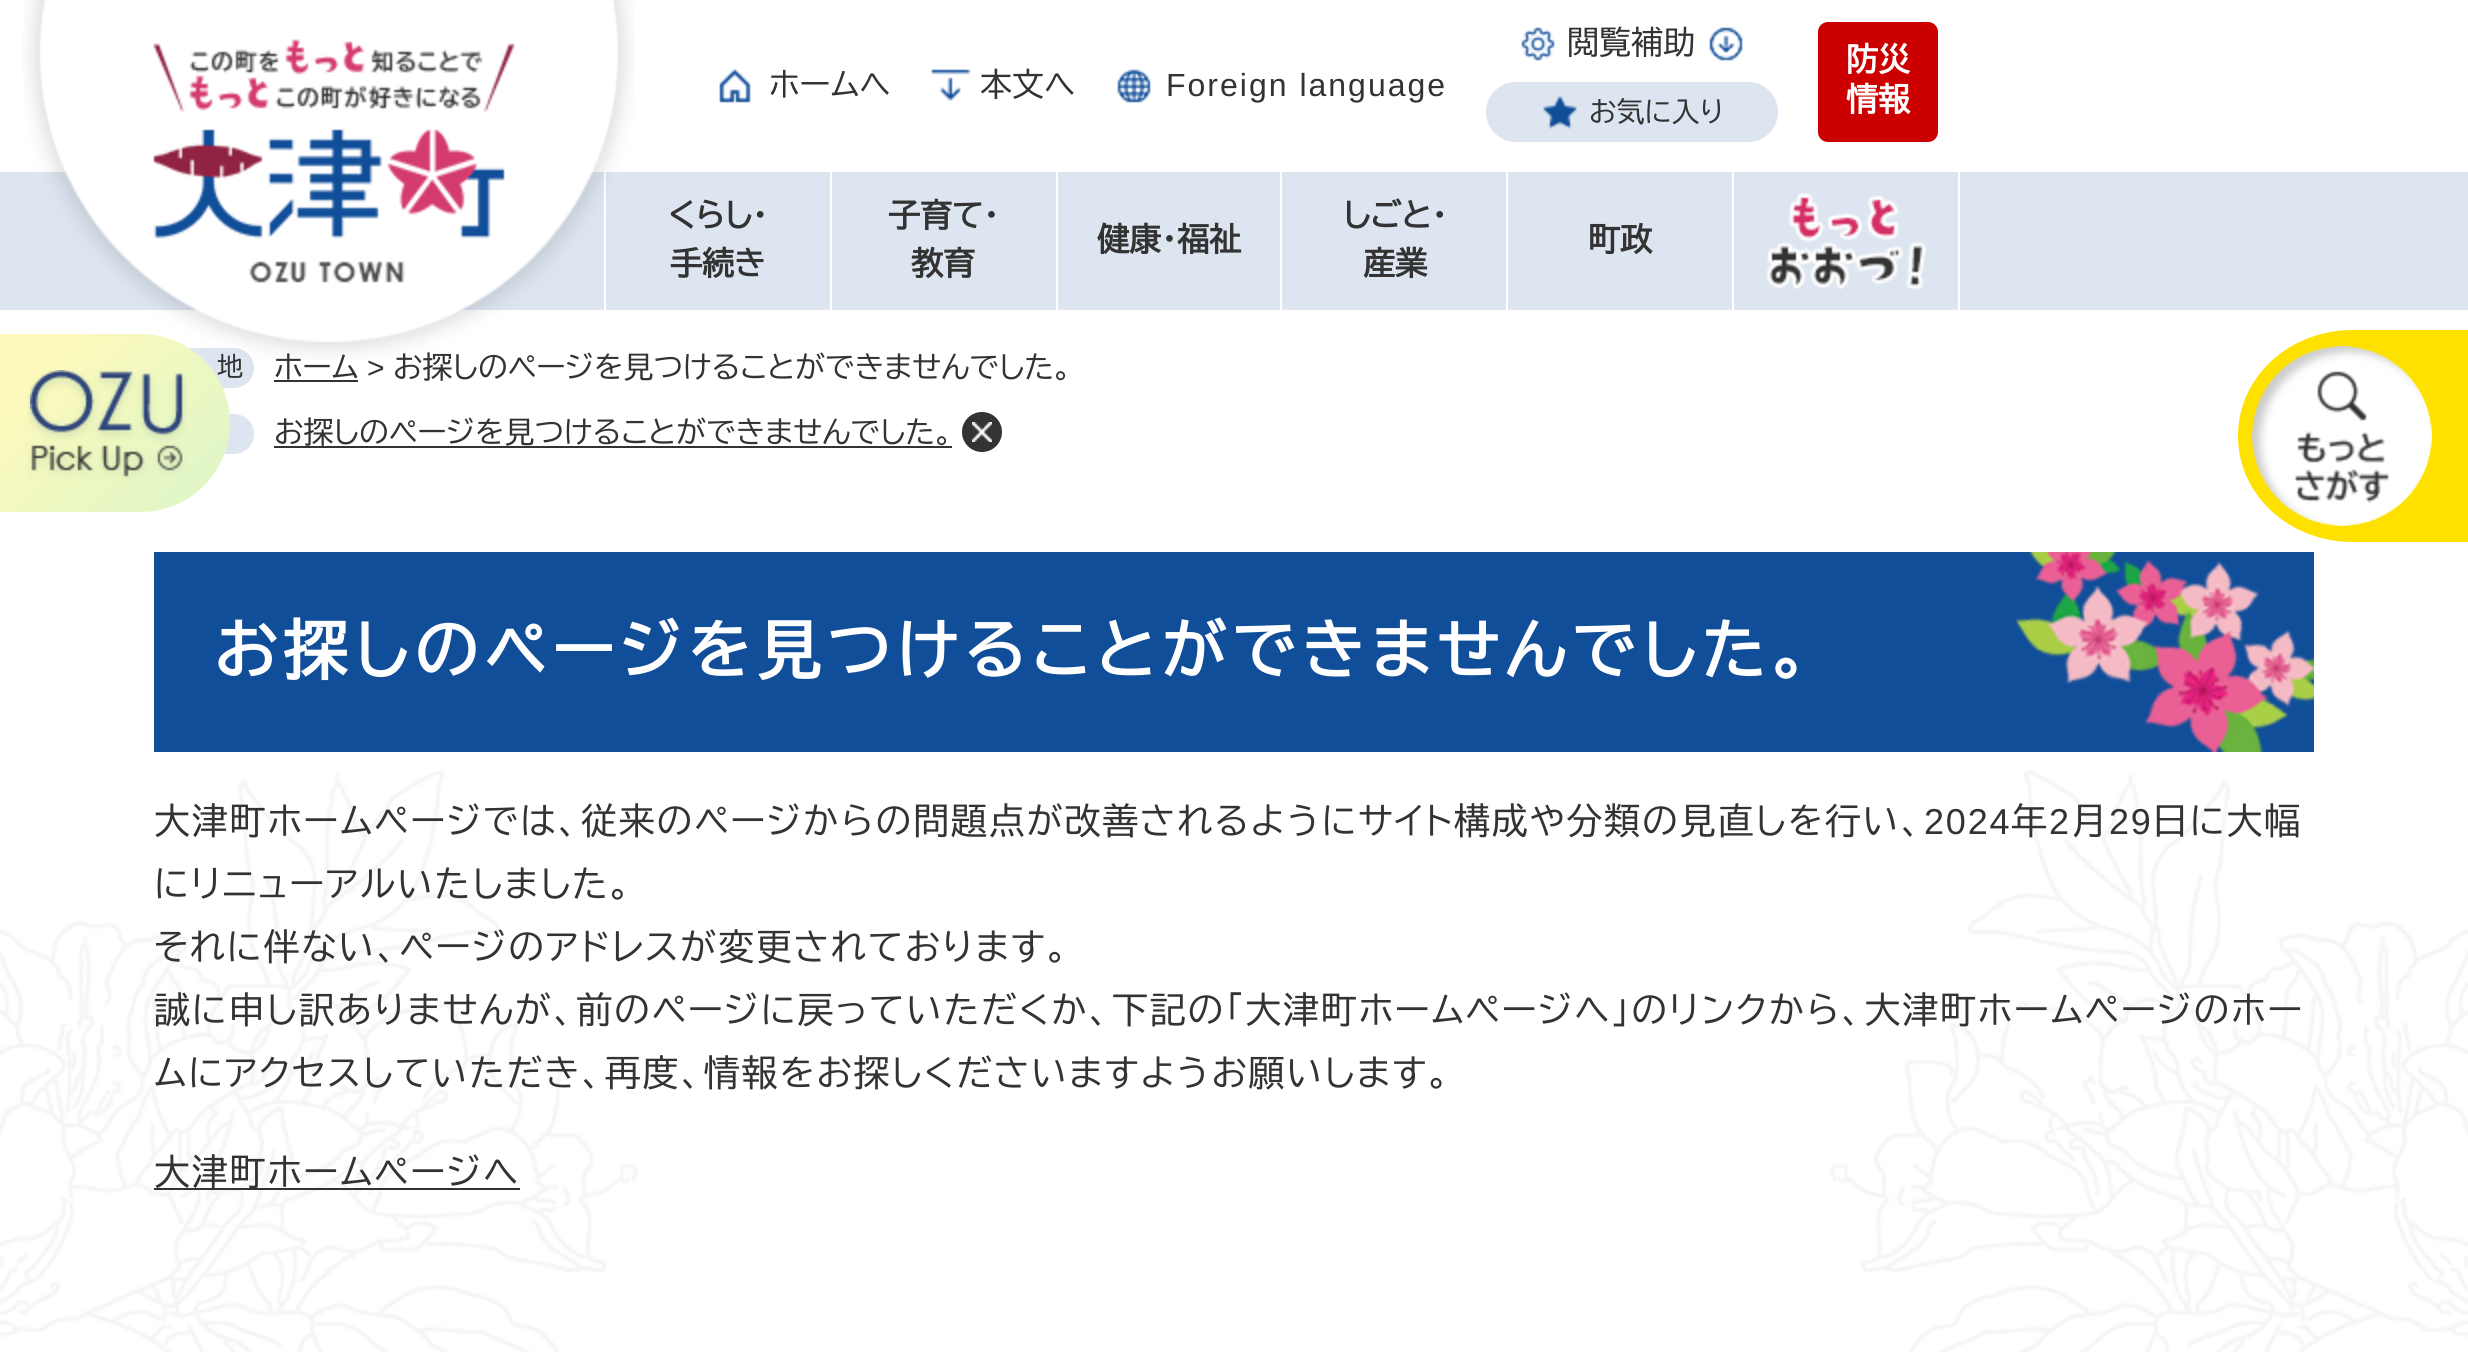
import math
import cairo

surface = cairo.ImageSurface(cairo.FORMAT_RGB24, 2468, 1352)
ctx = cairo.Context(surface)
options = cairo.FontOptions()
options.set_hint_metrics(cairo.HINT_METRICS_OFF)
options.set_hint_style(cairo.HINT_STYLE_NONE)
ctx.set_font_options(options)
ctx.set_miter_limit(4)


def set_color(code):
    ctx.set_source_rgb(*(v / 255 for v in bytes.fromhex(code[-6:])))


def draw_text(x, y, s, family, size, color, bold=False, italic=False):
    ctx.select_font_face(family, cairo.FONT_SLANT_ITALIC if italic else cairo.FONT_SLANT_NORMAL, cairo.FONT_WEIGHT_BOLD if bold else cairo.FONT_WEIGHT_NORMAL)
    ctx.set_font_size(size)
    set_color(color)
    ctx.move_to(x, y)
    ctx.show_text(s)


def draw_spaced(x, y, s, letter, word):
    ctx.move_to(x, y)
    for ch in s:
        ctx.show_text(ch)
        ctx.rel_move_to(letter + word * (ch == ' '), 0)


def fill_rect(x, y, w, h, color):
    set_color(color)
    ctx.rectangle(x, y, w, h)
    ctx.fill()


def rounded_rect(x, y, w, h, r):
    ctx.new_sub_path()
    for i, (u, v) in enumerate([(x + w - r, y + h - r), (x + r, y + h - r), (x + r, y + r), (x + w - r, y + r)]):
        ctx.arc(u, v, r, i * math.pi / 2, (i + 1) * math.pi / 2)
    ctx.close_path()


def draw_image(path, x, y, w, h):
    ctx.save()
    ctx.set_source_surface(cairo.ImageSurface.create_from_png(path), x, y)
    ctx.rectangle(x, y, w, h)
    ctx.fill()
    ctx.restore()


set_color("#ffffff")
ctx.paint()
draw_image("assets/img1.png", 0, 770, 2468, 582)
fill_rect(0, 172, 2468, 138, "#dce5f0")
fill_rect(604, 172, 2, 138, "#ffffff")
set_color("#dce5f0")
rounded_rect(154, 348, 100, 40, 20)
ctx.fill()
draw_text(217, 376, "地", "BIZ UDPGothic", 26, "#333333")
draw_text(274, 378, "ホーム", "BIZ UDPGothic", 30, "#333333")
draw_text(393, 378, "お探しのページを見つけることができませんでした。", "BIZ UDPGothic", 30, "#333333")
draw_image("assets/img2.png", 23, 0, 612, 360)
draw_image("assets/img3.png", 719, 69, 32, 34)
draw_text(769, 96, "ホームへ", "BIZ UDPGothic", 32, "#333333")
draw_image("assets/img4.png", 930, 69, 41, 32)
draw_text(980, 96, "本文へ", "BIZ UDPGothic", 32, "#333333")
draw_image("assets/img5.png", 1117, 69, 34, 34)
ctx.select_font_face("Liberation Sans")
draw_spaced(1166, 96, "Foreign language", 2, 0)
draw_image("assets/img6.png", 1521, 27, 34, 34)
draw_text(1567, 54, "閲覧補助", "BIZ UDPGothic", 32, "#333333")
draw_image("assets/img7.png", 1709, 27, 34, 34)
set_color("#dce5f0")
rounded_rect(1486, 82, 292, 60, 30)
ctx.fill()
draw_image("assets/img8.png", 1543, 95, 34, 34)
draw_text(1589, 122, "お気に入り", "BIZ UDPGothic", 28, "#333333")
set_color("#cc0000")
rounded_rect(1818, 22, 120, 120, 10)
ctx.fill()
draw_text(1846, 71, "防災", "BIZ UDPGothic", 32, "#ffffff", bold=True)
draw_text(1846, 111, "情報", "BIZ UDPGothic", 32, "#ffffff", bold=True)
fill_rect(830, 172, 2, 138, "#ffffff")
draw_text(668, 227, "くらし・", "BIZ UDPGothic", 32, "#333333", bold=True)
draw_text(670, 275, "手続き", "BIZ UDPGothic", 32, "#333333", bold=True)
fill_rect(1056, 172, 2, 138, "#ffffff")
draw_text(888, 227, "子育て・", "BIZ UDPGothic", 32, "#333333", bold=True)
draw_text(911, 275, "教育", "BIZ UDPGothic", 32, "#333333", bold=True)
fill_rect(1280, 172, 2, 138, "#ffffff")
draw_text(1097, 251, "健康・福祉", "BIZ UDPGothic", 32, "#333333", bold=True)
fill_rect(1506, 172, 2, 138, "#ffffff")
draw_text(1343, 227, "しごと・", "BIZ UDPGothic", 32, "#333333", bold=True)
draw_text(1363, 275, "産業", "BIZ UDPGothic", 32, "#333333", bold=True)
fill_rect(1732, 172, 2, 138, "#ffffff")
draw_text(1588, 251, "町政", "BIZ UDPGothic", 32, "#333333", bold=True)
fill_rect(1958, 172, 2, 138, "#ffffff")
draw_image("assets/img9.png", 1766, 192, 160, 98)
set_color("#ffe100")
ctx.new_path()
ctx.move_to(2353, 330)
ctx.line_to(2468, 330)
ctx.line_to(2468, 542)
ctx.line_to(2353, 542)
ctx.curve_to(2289, 542, 2238, 495, 2238, 436)
ctx.curve_to(2238, 377, 2289, 330, 2353, 330)
ctx.close_path()
ctx.fill()
draw_image("assets/img10.png", 2252, 346, 180, 180)
set_color("#dce5f0")
rounded_rect(154, 414, 100, 40, 20)
ctx.fill()
gradient = cairo.LinearGradient(11, 321, 217, 526)
gradient.add_color_stop_rgba(0.2, 0.988, 0.976, 0.733, 1)
gradient.add_color_stop_rgba(0.8, 0.89, 0.969, 0.776, 1)
ctx.set_source(gradient)
ctx.new_path()
ctx.move_to(-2, 334)
ctx.line_to(141, 334)
ctx.curve_to(190, 334, 230, 374, 230, 423)
ctx.curve_to(230, 472, 190, 512, 141, 512)
ctx.line_to(-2, 512)
ctx.close_path()
ctx.fill()
draw_image("assets/img11.png", 28, 370, 159, 110)
fill_rect(274, 380, 84, 2, "#333333")
draw_text(367, 378, ">", "Liberation Sans", 30, "#333333")
draw_text(274, 443, "お探しのページを見つけることができませんでした。", "BIZ UDPGothic", 30, "#333333")
fill_rect(274, 446, 678, 2, "#333333")
ctx.new_path()
ctx.arc(982, 432, 20, 0, 2 * math.pi)
ctx.fill()
draw_image("assets/img12.png", 972, 422, 20, 20)
fill_rect(154, 552, 2160, 200, "#114e99")
draw_image("assets/img13.png", 2016, 552, 298, 200)
ctx.select_font_face("BIZ UDPGothic", cairo.FONT_SLANT_NORMAL, cairo.FONT_WEIGHT_BOLD)
ctx.set_font_size(64)
set_color("#ffffff")
draw_spaced(214, 674, "お探しのページを見つけることができませんでした。", 6.4, 0)
ctx.select_font_face("BIZ UDPGothic")
ctx.set_font_size(36)
set_color("#333333")
draw_spaced(154, 834, "大津町ホームページでは、従来のページからの問題点が改善されるようにサイト構成や分類の見直しを行い、", 1.8, 0)
ctx.select_font_face("Liberation Sans")
draw_spaced(1924, 834, "2024", 1.8, 0)
ctx.select_font_face("BIZ UDPGothic")
draw_spaced(2011, 834, "年", 1.8, 0)
ctx.select_font_face("Liberation Sans")
draw_spaced(2049, 834, "2", 1.8, 0)
ctx.select_font_face("BIZ UDPGothic")
draw_spaced(2071, 834, "月", 1.8, 0)
ctx.select_font_face("Liberation Sans")
draw_spaced(2109, 834, "29", 1.8, 0)
ctx.select_font_face("BIZ UDPGothic")
draw_spaced(2152, 834, "日に大幅", 1.8, 0)
draw_spaced(154, 897, "にリニューアルいたしました。", 1.8, 0)
draw_spaced(154, 960, "それに伴ない、ページのアドレスが変更されております。", 1.8, 0)
draw_spaced(154, 1023, "誠に申し訳ありませんが、前のページに戻っていただくか、下記の「大津町ホームページへ」のリンクから、大津町ホームページのホー", 1.8, 0)
draw_spaced(154, 1086, "ムにアクセスしていただき、再度、情報をお探しくださいますようお願いします。", 1.8, 0)
fill_rect(154, 1188, 366, 2, "#333333")
draw_spaced(154, 1185, "大津町ホームページへ", 1.8, 0)
surface.write_to_png("output.png")
